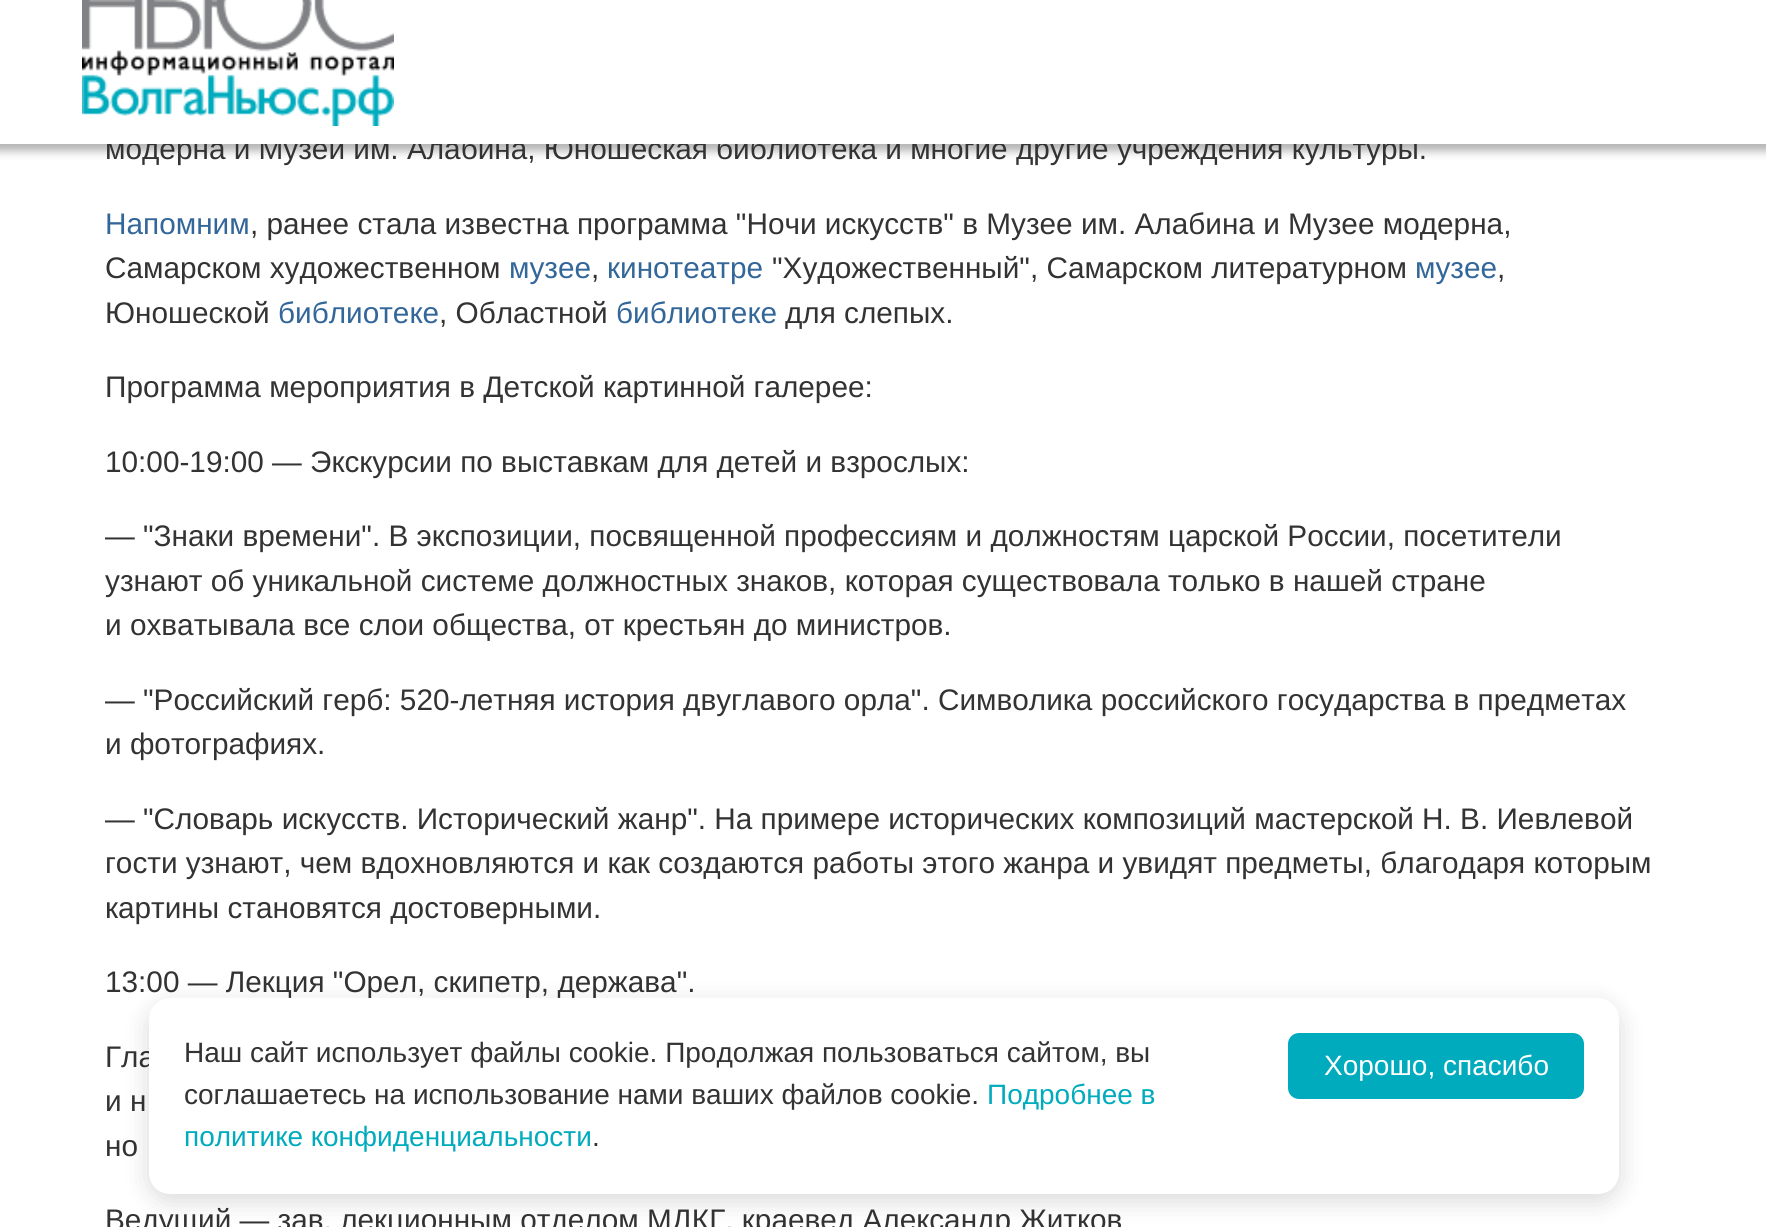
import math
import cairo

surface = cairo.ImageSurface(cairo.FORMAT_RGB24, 1766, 1227)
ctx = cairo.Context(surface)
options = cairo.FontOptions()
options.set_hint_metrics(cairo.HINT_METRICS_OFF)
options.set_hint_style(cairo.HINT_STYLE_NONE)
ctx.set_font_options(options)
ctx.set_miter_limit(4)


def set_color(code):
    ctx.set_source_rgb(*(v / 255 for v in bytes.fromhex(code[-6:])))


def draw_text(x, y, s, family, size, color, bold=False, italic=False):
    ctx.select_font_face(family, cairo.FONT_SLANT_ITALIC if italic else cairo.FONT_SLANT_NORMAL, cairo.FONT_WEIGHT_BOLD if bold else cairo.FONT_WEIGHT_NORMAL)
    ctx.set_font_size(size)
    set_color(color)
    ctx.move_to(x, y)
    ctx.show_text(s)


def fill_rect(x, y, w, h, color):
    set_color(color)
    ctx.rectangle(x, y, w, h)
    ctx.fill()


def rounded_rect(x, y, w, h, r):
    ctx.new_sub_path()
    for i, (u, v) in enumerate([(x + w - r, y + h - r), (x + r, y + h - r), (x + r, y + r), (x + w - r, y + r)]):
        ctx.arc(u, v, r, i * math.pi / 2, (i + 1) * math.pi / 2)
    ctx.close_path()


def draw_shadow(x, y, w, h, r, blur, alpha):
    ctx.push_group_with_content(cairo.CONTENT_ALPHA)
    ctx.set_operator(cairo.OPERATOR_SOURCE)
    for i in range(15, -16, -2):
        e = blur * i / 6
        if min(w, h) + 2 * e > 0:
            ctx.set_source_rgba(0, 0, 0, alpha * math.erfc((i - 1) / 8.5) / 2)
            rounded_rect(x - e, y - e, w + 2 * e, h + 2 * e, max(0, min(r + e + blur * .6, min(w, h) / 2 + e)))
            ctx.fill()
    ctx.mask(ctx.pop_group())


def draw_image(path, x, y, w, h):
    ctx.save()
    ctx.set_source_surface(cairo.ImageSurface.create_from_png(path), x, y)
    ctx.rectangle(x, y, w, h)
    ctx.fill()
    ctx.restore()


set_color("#ffffff")
ctx.paint()
set_color("#000000")
draw_shadow(-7, -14, 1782, 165, 0, 4.5, 0.3)
draw_text(105, 159, "модерна и Музей им. Алабина, Юношеская библиотека и многие другие учреждения культуры.", "Liberation Sans", 29.75, "#333333")
fill_rect(0, 0, 1766, 144, "#ffffff")
draw_image("assets/img1.png", 82, 0, 312, 126)
draw_text(105, 234, "Напомним", "Liberation Sans", 29.75, "#336699")
draw_text(250, 234, ", ранее стала известна программа \"Ночи искусств\" в Музее им. Алабина и Музее модерна,", "Liberation Sans", 29.75, "#333333")
draw_text(105, 278, "Самарском художественном", "Liberation Sans", 29.75, "#333333")
draw_text(509, 278, "музее", "Liberation Sans", 29.75, "#336699")
draw_text(591, 278, ",", "Liberation Sans", 29.75, "#333333")
draw_text(607, 278, "кинотеатре", "Liberation Sans", 29.75, "#336699")
draw_text(772, 278, "\"Художественный\", Самарском литературном", "Liberation Sans", 29.75, "#333333")
draw_text(1415, 278, "музее", "Liberation Sans", 29.75, "#336699")
draw_text(1497, 278, ",", "Liberation Sans", 29.75, "#333333")
draw_text(105, 323, "Юношеской", "Liberation Sans", 29.75, "#333333")
draw_text(278, 323, "библиотеке", "Liberation Sans", 29.75, "#336699")
draw_text(439, 323, ", Областной", "Liberation Sans", 29.75, "#333333")
draw_text(616, 323, "библиотеке", "Liberation Sans", 29.75, "#336699")
draw_text(785, 323, "для слепых.", "Liberation Sans", 29.75, "#333333")
draw_text(105, 397, "Программа мероприятия в Детской картинной галерее:", "Liberation Sans", 29.75, "#333333")
draw_text(105, 472, "10:00-19:00 — Экскурсии по выставкам для детей и взрослых:", "Liberation Sans", 29.75, "#333333")
draw_text(105, 546, "— \"Знаки времени\". В экспозиции, посвященной профессиям и должностям царской России, посетители", "Liberation Sans", 29.75, "#333333")
draw_text(105, 591, "узнают об уникальной системе должностных знаков, которая существовала только в нашей стране", "Liberation Sans", 29.75, "#333333")
draw_text(105, 635, "и охватывала все слои общества, от крестьян до министров.", "Liberation Sans", 29.75, "#333333")
draw_text(105, 710, "— \"Российский герб: 520-летняя история двуглавого орла\". Символика российского государства в предметах", "Liberation Sans", 29.75, "#333333")
draw_text(105, 754, "и фотографиях.", "Liberation Sans", 29.75, "#333333")
draw_text(105, 829, "— \"Словарь искусств. Исторический жанр\". На примере исторических композиций мастерской Н. В. Иевлевой", "Liberation Sans", 29.75, "#333333")
draw_text(105, 873, "гости узнают, чем вдохновляются и как создаются работы этого жанра и увидят предметы, благодаря которым", "Liberation Sans", 29.75, "#333333")
draw_text(105, 918, "картины становятся достоверными.", "Liberation Sans", 29.75, "#333333")
draw_text(105, 992, "13:00 — Лекция \"Орел, скипетр, держава\".", "Liberation Sans", 29.75, "#333333")
draw_text(105, 1067, "Гла", "Liberation Sans", 29.75, "#333333")
draw_text(105, 1111, "и н", "Liberation Sans", 29.75, "#333333")
draw_text(105, 1156, "но", "Liberation Sans", 29.75, "#333333")
draw_text(105, 1230, "Ведущий — зав. лекционным отделом МДКГ, краевед Александр Житков", "Liberation Sans", 29.75, "#333333")
set_color("#000000")
draw_shadow(149, 1005, 1470, 196, 21, 13, 0.15)
set_color("#ffffff")
rounded_rect(149, 998, 1470, 196, 21)
ctx.fill()
draw_text(184, 1062, "Наш сайт использует файлы cookie. Продолжая пользоваться сайтом, вы", "Liberation Sans", 28, "#333333")
draw_text(184, 1104, "соглашаетесь на использование нами ваших файлов cookie.", "Liberation Sans", 28, "#333333")
draw_text(987, 1104, "Подробнее в", "Liberation Sans", 28, "#00abbd")
draw_text(184, 1146, "политике конфиденциальности", "Liberation Sans", 28, "#00abbd")
draw_text(592, 1146, ".", "Liberation Sans", 28, "#333333")
set_color("#00abbd")
rounded_rect(1288, 1033, 296, 66, 11)
ctx.fill()
draw_text(1324, 1075, "Хорошо, спасибо", "Liberation Sans", 28, "#ffffff")
surface.write_to_png("output.png")
